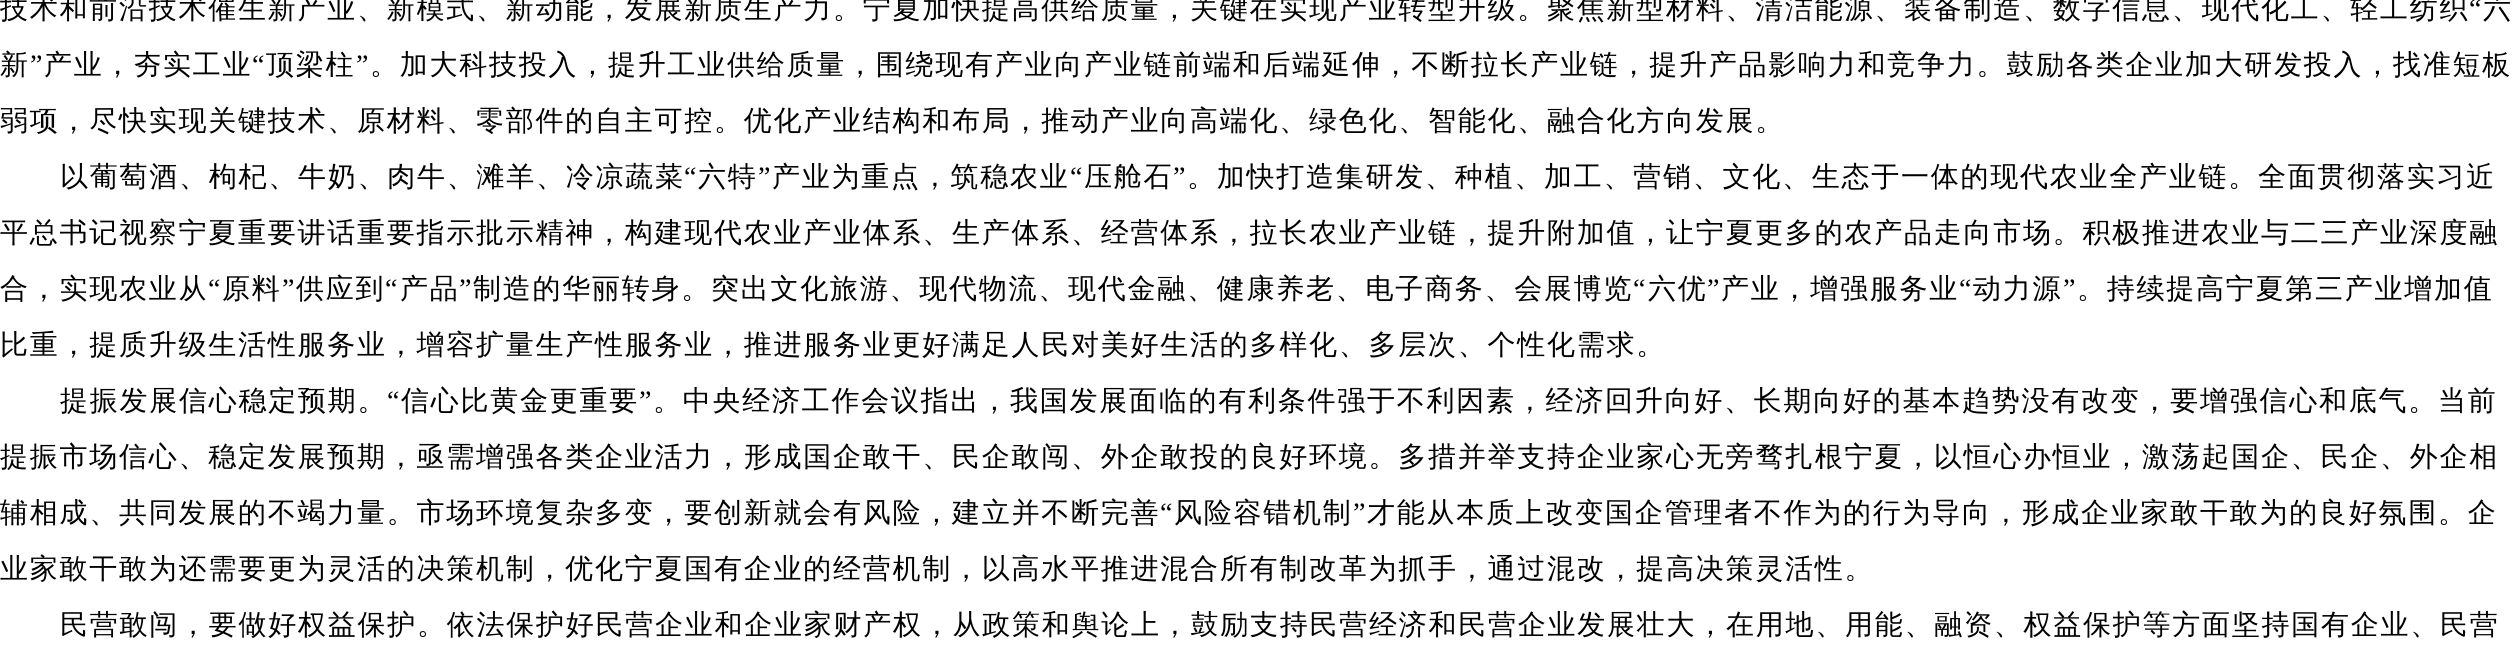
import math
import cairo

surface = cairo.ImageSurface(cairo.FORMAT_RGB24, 2514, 671)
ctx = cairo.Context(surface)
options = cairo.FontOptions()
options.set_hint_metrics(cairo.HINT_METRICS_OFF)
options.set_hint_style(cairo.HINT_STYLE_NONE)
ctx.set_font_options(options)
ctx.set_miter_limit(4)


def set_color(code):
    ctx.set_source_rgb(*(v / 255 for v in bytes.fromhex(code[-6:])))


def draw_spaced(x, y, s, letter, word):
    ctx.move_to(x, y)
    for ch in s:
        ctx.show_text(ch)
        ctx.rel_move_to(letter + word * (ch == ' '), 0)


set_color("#ffffff")
ctx.paint()
ctx.select_font_face("WenQuanYi Zen Hei Medium")
ctx.set_font_size(28)
set_color("#000000")
draw_spaced(0, 18, "技术和前沿技术催生新产业、新模式、新动能，发展新质生产力。宁夏加快提高供给质量，关键在实现产业转型升级。聚焦新型材料、清洁能源、装备制造、数字信息、现代化工、轻工纺织", 1.75, 0)
ctx.select_font_face("Liberation Serif")
draw_spaced(2469, 18, "“", 1.75, 0)
ctx.select_font_face("WenQuanYi Zen Hei Medium")
draw_spaced(2483, 18, "六", 1.75, 0)
draw_spaced(0, 74, "新", 1.75, 0)
ctx.select_font_face("Liberation Serif")
draw_spaced(30, 74, "”", 1.75, 0)
ctx.select_font_face("WenQuanYi Zen Hei Medium")
draw_spaced(44, 74, "产业，夯实工业", 1.75, 0)
ctx.select_font_face("Liberation Serif")
draw_spaced(252, 74, "“", 1.75, 0)
ctx.select_font_face("WenQuanYi Zen Hei Medium")
draw_spaced(266, 74, "顶梁柱", 1.75, 0)
ctx.select_font_face("Liberation Serif")
draw_spaced(356, 74, "”", 1.75, 0)
ctx.select_font_face("WenQuanYi Zen Hei Medium")
draw_spaced(370, 74, "。加大科技投入，提升工业供给质量，围绕现有产业向产业链前端和后端延伸，不断拉长产业链，提升产品影响力和竞争力。鼓励各类企业加大研发投入，找准短板", 1.75, 0)
draw_spaced(0, 130, "弱项，尽快实现关键技术、原材料、零部件的自主可控。优化产业结构和布局，推动产业向高端化、绿色化、智能化、融合化方向发展。", 1.75, 0)
draw_spaced(60, 186, "以葡萄酒、枸杞、牛奶、肉牛、滩羊、冷凉蔬菜", 1.75, 0)
ctx.select_font_face("Liberation Serif")
draw_spaced(684, 186, "“", 1.75, 0)
ctx.select_font_face("WenQuanYi Zen Hei Medium")
draw_spaced(698, 186, "六特", 1.75, 0)
ctx.select_font_face("Liberation Serif")
draw_spaced(758, 186, "”", 1.75, 0)
ctx.select_font_face("WenQuanYi Zen Hei Medium")
draw_spaced(772, 186, "产业为重点，筑稳农业", 1.75, 0)
ctx.select_font_face("Liberation Serif")
draw_spaced(1070, 186, "“", 1.75, 0)
ctx.select_font_face("WenQuanYi Zen Hei Medium")
draw_spaced(1084, 186, "压舱石", 1.75, 0)
ctx.select_font_face("Liberation Serif")
draw_spaced(1173, 186, "”", 1.75, 0)
ctx.select_font_face("WenQuanYi Zen Hei Medium")
draw_spaced(1187, 186, "。加快打造集研发、种植、加工、营销、文化、生态于一体的现代农业全产业链。全面贯彻落实习近", 1.75, 0)
draw_spaced(0, 242, "平总书记视察宁夏重要讲话重要指示批示精神，构建现代农业产业体系、生产体系、经营体系，拉长农业产业链，提升附加值，让宁夏更多的农产品走向市场。积极推进农业与二三产业深度融", 1.75, 0)
draw_spaced(0, 298, "合，实现农业从", 1.75, 0)
ctx.select_font_face("Liberation Serif")
draw_spaced(208, 298, "“", 1.75, 0)
ctx.select_font_face("WenQuanYi Zen Hei Medium")
draw_spaced(222, 298, "原料", 1.75, 0)
ctx.select_font_face("Liberation Serif")
draw_spaced(282, 298, "”", 1.75, 0)
ctx.select_font_face("WenQuanYi Zen Hei Medium")
draw_spaced(296, 298, "供应到", 1.75, 0)
ctx.select_font_face("Liberation Serif")
draw_spaced(385, 298, "“", 1.75, 0)
ctx.select_font_face("WenQuanYi Zen Hei Medium")
draw_spaced(400, 298, "产品", 1.75, 0)
ctx.select_font_face("Liberation Serif")
draw_spaced(459, 298, "”", 1.75, 0)
ctx.select_font_face("WenQuanYi Zen Hei Medium")
draw_spaced(473, 298, "制造的华丽转身。突出文化旅游、现代物流、现代金融、健康养老、电子商务、会展博览", 1.75, 0)
ctx.select_font_face("Liberation Serif")
draw_spaced(1633, 298, "“", 1.75, 0)
ctx.select_font_face("WenQuanYi Zen Hei Medium")
draw_spaced(1648, 298, "六优", 1.75, 0)
ctx.select_font_face("Liberation Serif")
draw_spaced(1707, 298, "”", 1.75, 0)
ctx.select_font_face("WenQuanYi Zen Hei Medium")
draw_spaced(1721, 298, "产业，增强服务业", 1.75, 0)
ctx.select_font_face("Liberation Serif")
draw_spaced(1959, 298, "“", 1.75, 0)
ctx.select_font_face("WenQuanYi Zen Hei Medium")
draw_spaced(1973, 298, "动力源", 1.75, 0)
ctx.select_font_face("Liberation Serif")
draw_spaced(2063, 298, "”", 1.75, 0)
ctx.select_font_face("WenQuanYi Zen Hei Medium")
draw_spaced(2077, 298, "。持续提高宁夏第三产业增加值", 1.75, 0)
draw_spaced(0, 354, "比重，提质升级生活性服务业，增容扩量生产性服务业，推进服务业更好满足人民对美好生活的多样化、多层次、个性化需求。", 1.75, 0)
draw_spaced(60, 410, "提振发展信心稳定预期。", 1.75, 0)
ctx.select_font_face("Liberation Serif")
draw_spaced(387, 410, "“", 1.75, 0)
ctx.select_font_face("WenQuanYi Zen Hei Medium")
draw_spaced(401, 410, "信心比黄金更重要", 1.75, 0)
ctx.select_font_face("Liberation Serif")
draw_spaced(639, 410, "”", 1.75, 0)
ctx.select_font_face("WenQuanYi Zen Hei Medium")
draw_spaced(653, 410, "。中央经济工作会议指出，我国发展面临的有利条件强于不利因素，经济回升向好、长期向好的基本趋势没有改变，要增强信心和底气。当前", 1.75, 0)
draw_spaced(0, 466, "提振市场信心、稳定发展预期，亟需增强各类企业活力，形成国企敢干、民企敢闯、外企敢投的良好环境。多措并举支持企业家心无旁骛扎根宁夏，以恒心办恒业，激荡起国企、民企、外企相", 1.75, 0)
draw_spaced(0, 522, "辅相成、共同发展的不竭力量。市场环境复杂多变，要创新就会有风险，建立并不断完善", 1.75, 0)
ctx.select_font_face("Liberation Serif")
draw_spaced(1160, 522, "“", 1.75, 0)
ctx.select_font_face("WenQuanYi Zen Hei Medium")
draw_spaced(1174, 522, "风险容错机制", 1.75, 0)
ctx.select_font_face("Liberation Serif")
draw_spaced(1353, 522, "”", 1.75, 0)
ctx.select_font_face("WenQuanYi Zen Hei Medium")
draw_spaced(1367, 522, "才能从本质上改变国企管理者不作为的行为导向，形成企业家敢干敢为的良好氛围。企", 1.75, 0)
draw_spaced(0, 578, "业家敢干敢为还需要更为灵活的决策机制，优化宁夏国有企业的经营机制，以高水平推进混合所有制改革为抓手，通过混改，提高决策灵活性。", 1.75, 0)
draw_spaced(60, 634, "民营敢闯，要做好权益保护。依法保护好民营企业和企业家财产权，从政策和舆论上，鼓励支持民营经济和民营企业发展壮大，在用地、用能、融资、权益保护等方面坚持国有企业、民营", 1.75, 0)
surface.write_to_png("output.png")
